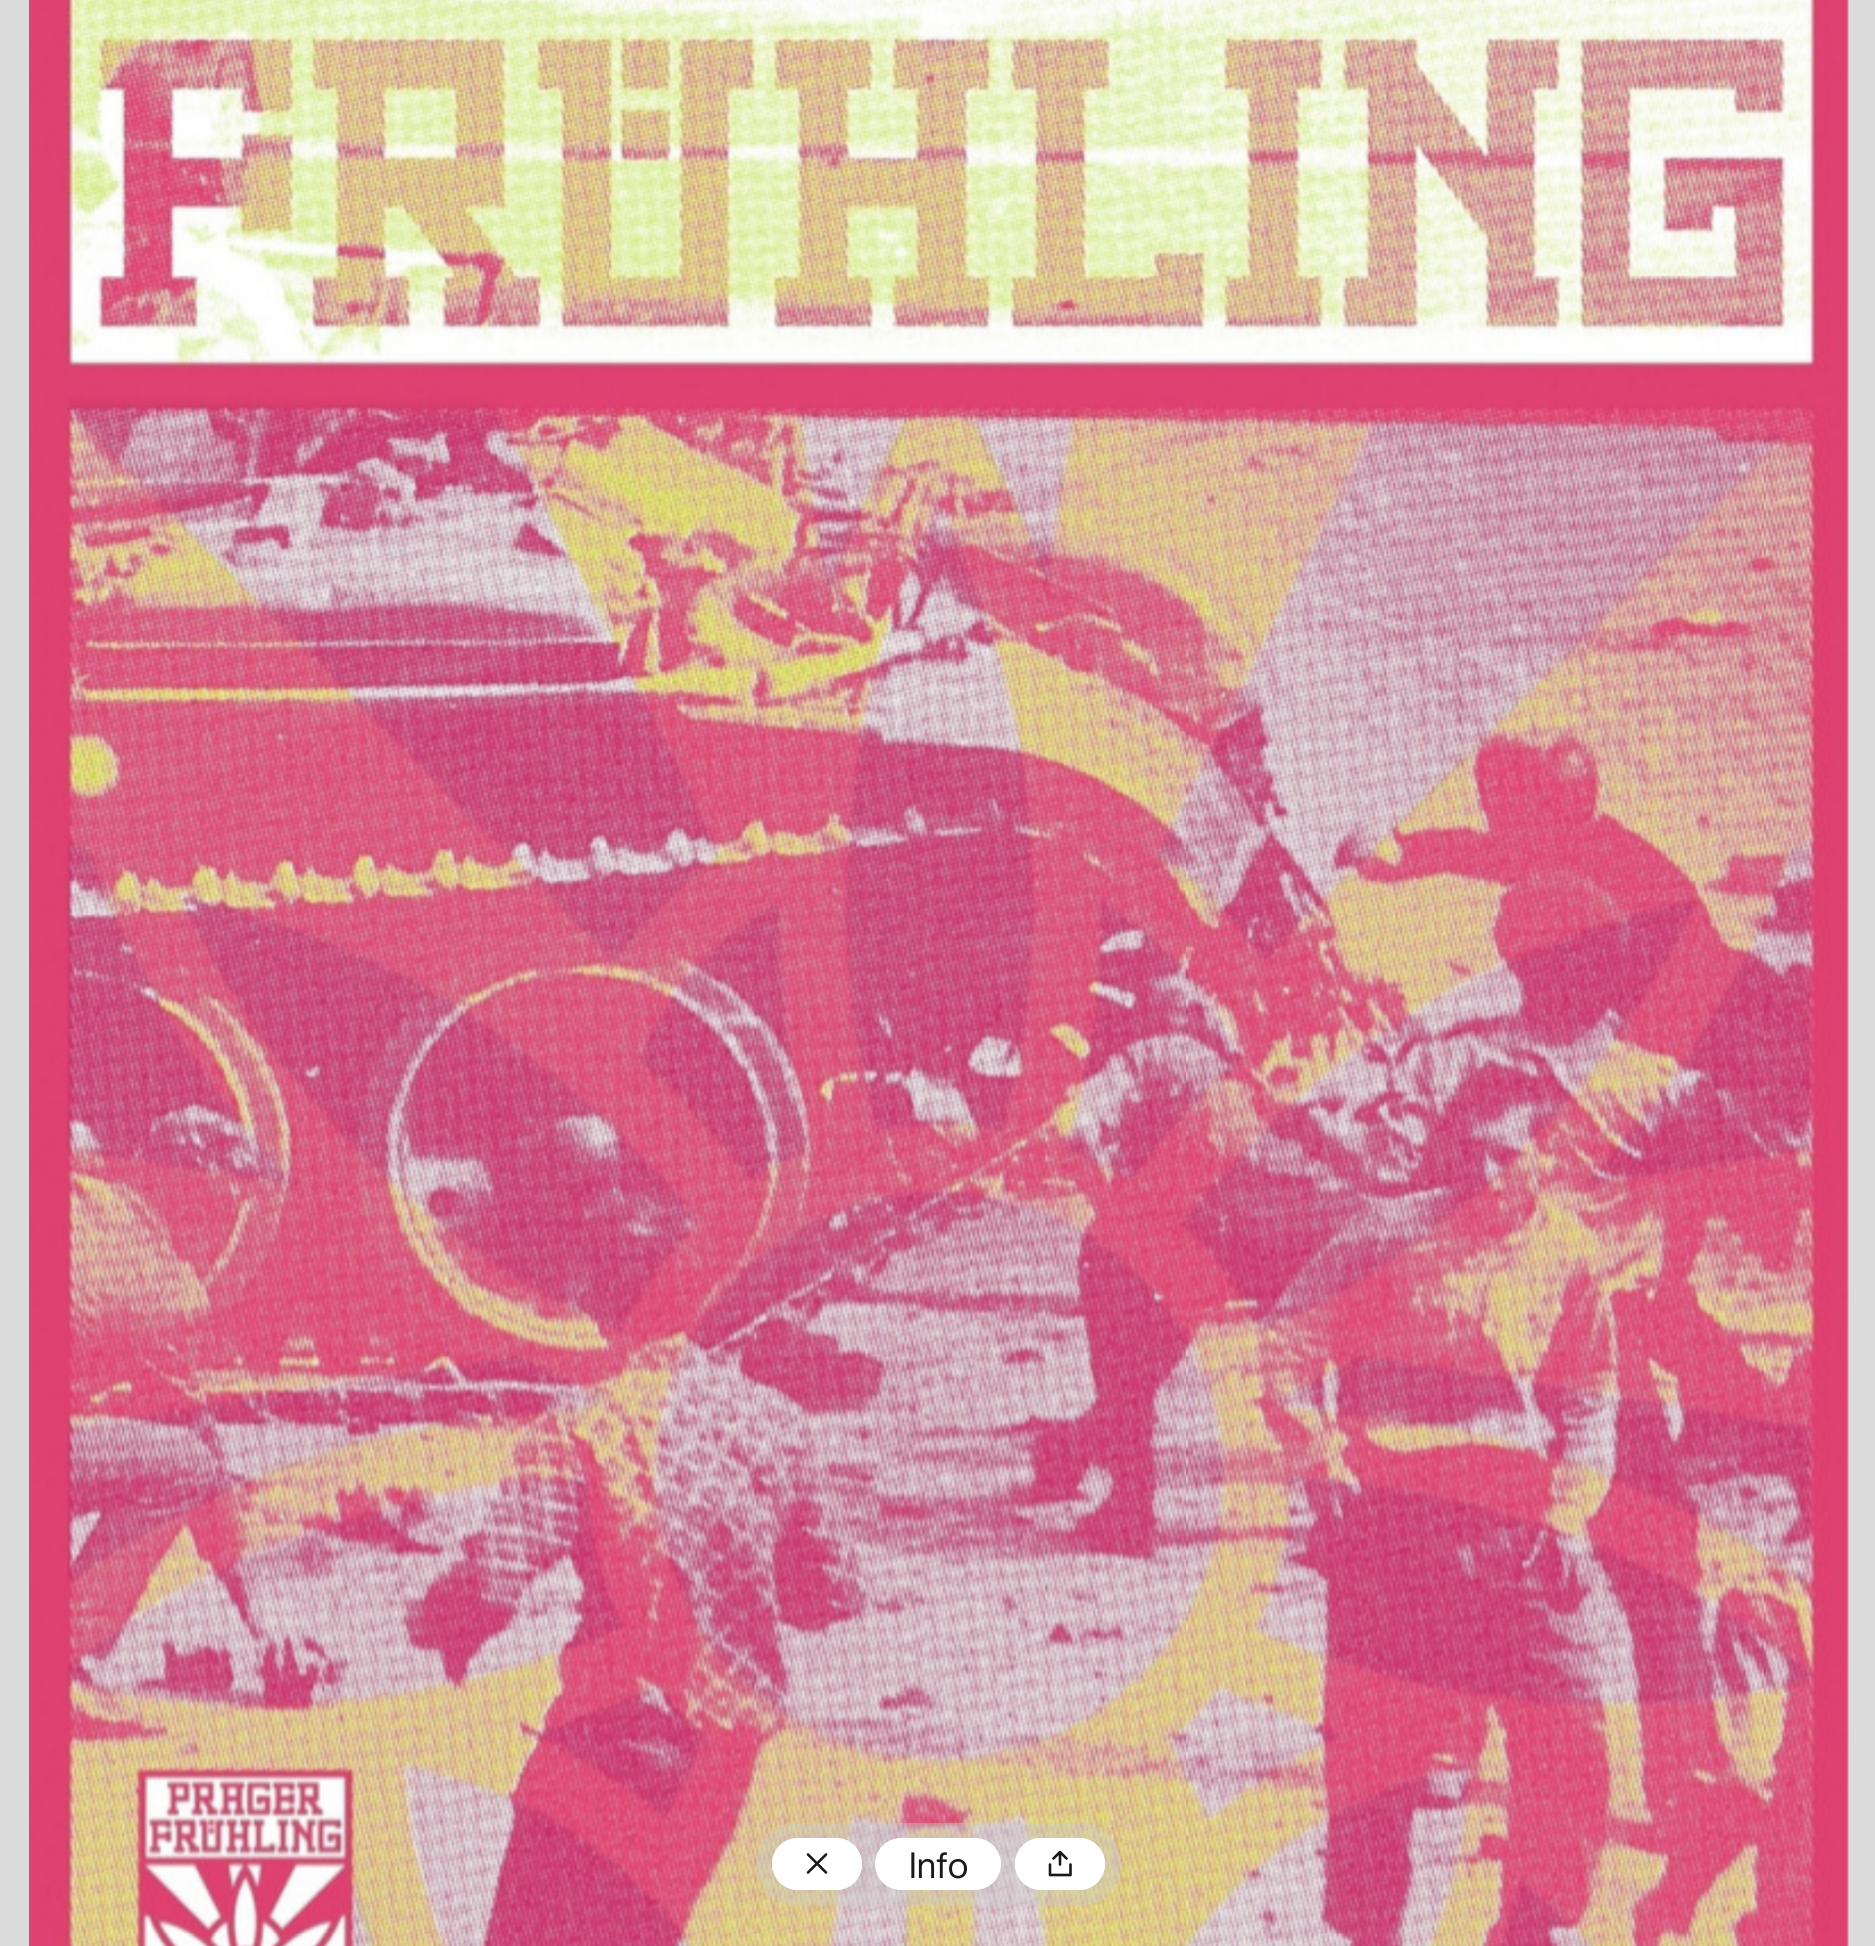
import math
import cairo

surface = cairo.ImageSurface(cairo.FORMAT_RGB24, 1875, 1946)
ctx = cairo.Context(surface)
options = cairo.FontOptions()
options.set_hint_metrics(cairo.HINT_METRICS_OFF)
options.set_hint_style(cairo.HINT_STYLE_NONE)
ctx.set_font_options(options)
ctx.set_miter_limit(4)


def set_color(code):
    ctx.set_source_rgb(*(v / 255 for v in bytes.fromhex(code[-6:])))


def draw_text(x, y, s, family, size, color, bold=False, italic=False):
    ctx.select_font_face(family, cairo.FONT_SLANT_ITALIC if italic else cairo.FONT_SLANT_NORMAL, cairo.FONT_WEIGHT_BOLD if bold else cairo.FONT_WEIGHT_NORMAL)
    ctx.set_font_size(size)
    set_color(color)
    ctx.move_to(x, y)
    ctx.show_text(s)


def rounded_rect(x, y, w, h, r):
    ctx.new_sub_path()
    for i, (u, v) in enumerate([(x + w - r, y + h - r), (x + r, y + h - r), (x + r, y + r), (x + w - r, y + r)]):
        ctx.arc(u, v, r, i * math.pi / 2, (i + 1) * math.pi / 2)
    ctx.close_path()


def draw_image(path, x, y, w, h):
    ctx.save()
    ctx.set_source_surface(cairo.ImageSurface.create_from_png(path), x, y)
    ctx.rectangle(x, y, w, h)
    ctx.fill()
    ctx.restore()


set_color("#dbdbdb")
ctx.paint()
draw_image("assets/img1.png", 29, 0, 1820, 1946)
ctx.set_source_rgba(0.792, 0.792, 0.792, 0.4)
rounded_rect(756, 1823, 365, 83, 41.5)
ctx.fill()
set_color("#ffffff")
rounded_rect(772, 1838, 90, 52, 26)
ctx.fill()
ctx.new_path()
ctx.move_to(808, 1854.5)
ctx.line_to(826, 1872.5)
ctx.move_to(808, 1872.5)
ctx.line_to(826, 1854.5)
set_color("#191919")
ctx.set_line_width(2.6)
ctx.set_line_cap(cairo.LINE_CAP_ROUND)
ctx.stroke()
rounded_rect(773, 1839, 88, 50, 25)
set_color("#ffffff")
ctx.set_line_width(2)
ctx.set_line_cap(cairo.LINE_CAP_BUTT)
ctx.stroke()
rounded_rect(876, 1839, 124, 50, 25)
ctx.fill_preserve()
ctx.stroke()
draw_text(909, 1878, "Info", "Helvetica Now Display", 36, "#191919")
set_color("#ffffff")
rounded_rect(1015, 1838, 90, 52, 26)
ctx.fill()
ctx.new_path()
ctx.move_to(1070.5, 1864.5)
ctx.line_to(1070.5, 1875)
ctx.move_to(1060, 1854.5)
ctx.line_to(1060, 1864.5)
ctx.move_to(1060, 1852)
ctx.line_to(1066.5, 1858.5)
ctx.move_to(1060, 1852)
ctx.line_to(1053.5, 1858.5)
ctx.move_to(1050, 1864.5)
ctx.line_to(1050, 1875)
ctx.move_to(1050, 1875)
ctx.line_to(1070.5, 1875)
set_color("#191919")
ctx.set_line_width(2.6)
ctx.set_line_cap(cairo.LINE_CAP_ROUND)
ctx.stroke()
rounded_rect(1016, 1839, 88, 50, 25)
set_color("#ffffff")
ctx.set_line_width(2)
ctx.set_line_cap(cairo.LINE_CAP_BUTT)
ctx.stroke()
surface.write_to_png("output.png")
